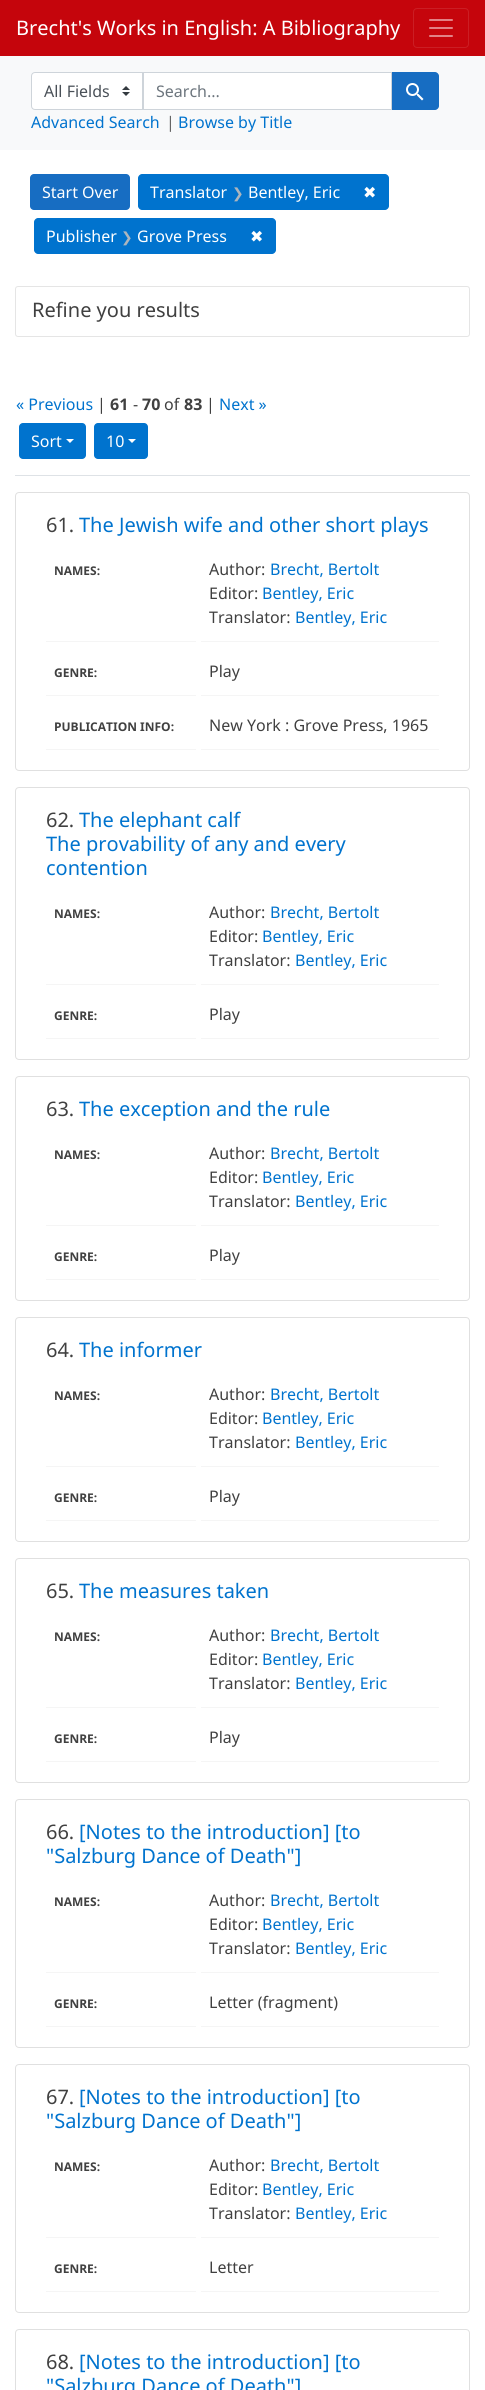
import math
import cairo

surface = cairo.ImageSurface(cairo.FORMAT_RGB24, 485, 2390)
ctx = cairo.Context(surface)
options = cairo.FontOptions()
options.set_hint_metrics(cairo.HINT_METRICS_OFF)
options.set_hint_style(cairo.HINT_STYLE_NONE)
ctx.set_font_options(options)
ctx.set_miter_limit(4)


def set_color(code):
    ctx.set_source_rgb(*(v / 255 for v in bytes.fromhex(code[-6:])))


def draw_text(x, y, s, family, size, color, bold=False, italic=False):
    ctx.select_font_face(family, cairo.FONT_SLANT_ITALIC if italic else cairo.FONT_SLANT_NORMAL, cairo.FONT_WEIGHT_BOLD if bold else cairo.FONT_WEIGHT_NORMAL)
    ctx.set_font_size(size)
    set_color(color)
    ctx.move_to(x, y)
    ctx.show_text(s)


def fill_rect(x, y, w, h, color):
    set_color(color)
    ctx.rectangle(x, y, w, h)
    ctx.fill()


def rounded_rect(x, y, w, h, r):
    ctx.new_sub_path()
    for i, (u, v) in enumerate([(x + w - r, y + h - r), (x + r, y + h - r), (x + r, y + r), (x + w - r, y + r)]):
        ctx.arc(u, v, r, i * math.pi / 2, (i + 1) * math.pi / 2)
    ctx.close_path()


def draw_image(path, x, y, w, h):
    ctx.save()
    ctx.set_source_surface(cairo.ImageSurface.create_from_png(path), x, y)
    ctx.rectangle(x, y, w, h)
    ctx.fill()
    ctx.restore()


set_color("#ffffff")
ctx.paint()
fill_rect(0, 0, 485, 56, "#c5050c")
draw_text(16, 35, "Brecht's Works in English: A Bibliography", "Noto Sans", 20, "#ffffff")
rounded_rect(413.5, 8.5, 55, 39, 3.5)
set_color("#cb1e24")
ctx.set_line_width(1)
ctx.stroke()
draw_image("assets/img1.png", 429, 19, 24, 18)
fill_rect(0, 56, 485, 94, "#f8f9fa")
set_color("#ffffff")
ctx.new_path()
ctx.move_to(35, 72)
ctx.line_to(143, 72)
ctx.line_to(143, 110)
ctx.line_to(35, 110)
ctx.curve_to(33, 110, 31, 108, 31, 106)
ctx.line_to(31, 76)
ctx.curve_to(31, 74, 33, 72, 35, 72)
ctx.close_path()
ctx.fill()
draw_image("assets/img2.png", 122, 86, 8, 10)
ctx.new_path()
ctx.move_to(35, 72.5)
ctx.line_to(142.5, 72.5)
ctx.line_to(142.5, 109.5)
ctx.line_to(35, 109.5)
ctx.curve_to(33, 109.5, 31.5, 108, 31.5, 106)
ctx.line_to(31.5, 76)
ctx.curve_to(31.5, 74, 33, 72.5, 35, 72.5)
ctx.close_path()
set_color("#ced4da")
ctx.stroke()
draw_text(44, 97, "All Fields", "Noto Sans", 16, "#495057")
set_color("#176dc2")
ctx.new_path()
ctx.move_to(391, 72)
ctx.line_to(435, 72)
ctx.curve_to(437, 72, 439, 74, 439, 76)
ctx.line_to(439, 106)
ctx.curve_to(439, 108, 437, 110, 435, 110)
ctx.line_to(391, 110)
ctx.close_path()
ctx.fill()
set_color("#ffffff")
ctx.rectangle(143.5, 72.5, 248, 37)
ctx.fill_preserve()
set_color("#ced4da")
ctx.stroke()
draw_text(156, 97, "Search...", "Noto Sans", 16, "#6c757d")
draw_image("assets/img3.png", 406, 83, 18, 18)
draw_text(31, 128, "Advanced Search", "Noto Sans", 16, "#0073ce")
draw_text(166, 128, "|", "Noto Sans", 16, "#656565")
draw_text(178, 128, "Browse by Title", "Noto Sans", 16, "#0073ce")
set_color("#176dc2")
rounded_rect(30, 174, 100, 36, 4)
ctx.fill()
draw_text(42, 198, "Start Over", "Noto Sans", 16, "#ffffff")
set_color("#0073ce")
ctx.new_path()
ctx.move_to(142, 174)
ctx.line_to(352, 174)
ctx.line_to(352, 210)
ctx.line_to(142, 210)
ctx.curve_to(140, 210, 138, 208, 138, 206)
ctx.line_to(138, 178)
ctx.curve_to(138, 176, 140, 174, 142, 174)
ctx.close_path()
ctx.fill()
draw_text(150, 198, "Translator", "Noto Sans", 16, "#ffffff")
draw_text(232, 198, "❯", "DejaVu Sans", 14, "#adb5bd")
draw_text(248, 198, "Bentley, Eric", "Noto Sans", 16, "#ffffff")
set_color("#0073ce")
ctx.new_path()
ctx.move_to(351, 174)
ctx.line_to(385, 174)
ctx.curve_to(387, 174, 389, 176, 389, 178)
ctx.line_to(389, 206)
ctx.curve_to(389, 208, 387, 210, 385, 210)
ctx.line_to(351, 210)
ctx.close_path()
ctx.fill()
draw_text(363, 198, "✖", "DejaVu Sans", 16, "#ffffff")
set_color("#0073ce")
ctx.new_path()
ctx.move_to(38, 218)
ctx.line_to(239, 218)
ctx.line_to(239, 254)
ctx.line_to(38, 254)
ctx.curve_to(36, 254, 34, 252, 34, 250)
ctx.line_to(34, 222)
ctx.curve_to(34, 220, 36, 218, 38, 218)
ctx.close_path()
ctx.fill()
draw_text(46, 242, "Publisher", "Noto Sans", 16, "#ffffff")
draw_text(121, 242, "❯", "DejaVu Sans", 14, "#adb5bd")
draw_text(137, 242, "Grove Press", "Noto Sans", 16, "#ffffff")
set_color("#0073ce")
ctx.new_path()
ctx.move_to(238, 218)
ctx.line_to(272, 218)
ctx.curve_to(274, 218, 276, 220, 276, 222)
ctx.line_to(276, 250)
ctx.curve_to(276, 252, 274, 254, 272, 254)
ctx.line_to(238, 254)
ctx.close_path()
ctx.fill()
draw_text(250, 242, "✖", "DejaVu Sans", 16, "#ffffff")
rounded_rect(15.5, 286.5, 454, 50, 2.5)
set_color("#e5e5e5")
ctx.stroke()
draw_text(32, 317, "Refine you results", "Noto Sans", 20, "#404040")
fill_rect(15, 475, 455, 1, "#dee2e6")
draw_text(16, 410, "« Previous", "Noto Sans", 16, "#0073ce")
draw_text(97, 410, "|", "Noto Sans", 16, "#404040")
draw_text(110, 410, "61", "Noto Sans", 16, "#404040", bold=True)
draw_text(133, 410, "-", "Noto Sans", 16, "#404040")
draw_text(142, 410, "70", "Noto Sans", 16, "#404040", bold=True)
draw_text(164, 410, "of", "Noto Sans", 16, "#404040")
draw_text(184, 410, "83", "Noto Sans", 16, "#404040", bold=True)
draw_text(206, 410, "|", "Noto Sans", 16, "#404040")
draw_text(219, 410, "Next »", "Noto Sans", 16, "#0073ce")
rounded_rect(19, 423, 67, 36, 4)
ctx.fill()
draw_text(31, 447, "Sort", "Noto Sans", 16, "#ffffff")
ctx.new_path()
ctx.move_to(66, 439)
ctx.line_to(74, 439)
ctx.line_to(70, 443)
ctx.close_path()
ctx.fill()
set_color("#0073ce")
rounded_rect(94, 423, 54, 36, 4)
ctx.fill()
draw_text(106, 447, "10", "Noto Sans", 16, "#ffffff")
ctx.new_path()
ctx.move_to(128, 439)
ctx.line_to(136, 439)
ctx.line_to(132, 443)
ctx.close_path()
ctx.fill()
rounded_rect(15.5, 492.5, 454, 278, 3.5)
set_color("#e0e0e0")
ctx.stroke()
draw_text(46, 532, "61.", "Noto Sans", 20, "#404040")
draw_text(79, 532, "The Jewish wife and other short plays", "Noto Sans", 20, "#0073ce")
fill_rect(46, 641, 150, 1, "#f5f5f5")
draw_text(54, 575, "NAMES:", "Noto Sans", 12, "#404040", bold=True)
fill_rect(201, 641, 238, 1, "#f5f5f5")
draw_text(209, 575, "Author:", "Noto Sans", 16, "#404040")
draw_text(270, 575, "Brecht, Bertolt", "Noto Sans", 16, "#0073ce")
draw_text(209, 599, "Editor:", "Noto Sans", 16, "#404040")
draw_text(262, 599, "Bentley, Eric", "Noto Sans", 16, "#0073ce")
draw_text(209, 623, "Translator:", "Noto Sans", 16, "#404040")
draw_text(295, 623, "Bentley, Eric", "Noto Sans", 16, "#0073ce")
fill_rect(46, 695, 150, 1, "#f5f5f5")
draw_text(54, 677, "GENRE:", "Noto Sans", 12, "#404040", bold=True)
fill_rect(201, 695, 238, 1, "#f5f5f5")
draw_text(209, 677, "Play", "Noto Sans", 16, "#404040")
fill_rect(46, 749, 150, 1, "#f5f5f5")
draw_text(54, 731, "PUBLICATION INFO:", "Noto Sans", 12, "#404040", bold=True)
fill_rect(201, 749, 238, 1, "#f5f5f5")
draw_text(209, 731, "New York : Grove Press, 1965", "Noto Sans", 16, "#404040")
rounded_rect(15.5, 787.5, 454, 272, 3.5)
set_color("#e0e0e0")
ctx.stroke()
draw_text(46, 827, "62.", "Noto Sans", 20, "#404040")
draw_text(79, 827, "The elephant calf", "Noto Sans", 20, "#0073ce")
draw_text(46, 851, "The provability of any and every", "Noto Sans", 20, "#0073ce")
draw_text(46, 875, "contention", "Noto Sans", 20, "#0073ce")
fill_rect(46, 984, 150, 1, "#f5f5f5")
draw_text(54, 918, "NAMES:", "Noto Sans", 12, "#404040", bold=True)
fill_rect(201, 984, 238, 1, "#f5f5f5")
draw_text(209, 918, "Author:", "Noto Sans", 16, "#404040")
draw_text(270, 918, "Brecht, Bertolt", "Noto Sans", 16, "#0073ce")
draw_text(209, 942, "Editor:", "Noto Sans", 16, "#404040")
draw_text(262, 942, "Bentley, Eric", "Noto Sans", 16, "#0073ce")
draw_text(209, 966, "Translator:", "Noto Sans", 16, "#404040")
draw_text(295, 966, "Bentley, Eric", "Noto Sans", 16, "#0073ce")
fill_rect(46, 1038, 150, 1, "#f5f5f5")
draw_text(54, 1020, "GENRE:", "Noto Sans", 12, "#404040", bold=True)
fill_rect(201, 1038, 238, 1, "#f5f5f5")
draw_text(209, 1020, "Play", "Noto Sans", 16, "#404040")
rounded_rect(15.5, 1076.5, 454, 224, 3.5)
set_color("#e0e0e0")
ctx.stroke()
draw_text(46, 1116, "63.", "Noto Sans", 20, "#404040")
draw_text(79, 1116, "The exception and the rule", "Noto Sans", 20, "#0073ce")
fill_rect(46, 1225, 150, 1, "#f5f5f5")
draw_text(54, 1159, "NAMES:", "Noto Sans", 12, "#404040", bold=True)
fill_rect(201, 1225, 238, 1, "#f5f5f5")
draw_text(209, 1159, "Author:", "Noto Sans", 16, "#404040")
draw_text(270, 1159, "Brecht, Bertolt", "Noto Sans", 16, "#0073ce")
draw_text(209, 1183, "Editor:", "Noto Sans", 16, "#404040")
draw_text(262, 1183, "Bentley, Eric", "Noto Sans", 16, "#0073ce")
draw_text(209, 1207, "Translator:", "Noto Sans", 16, "#404040")
draw_text(295, 1207, "Bentley, Eric", "Noto Sans", 16, "#0073ce")
fill_rect(46, 1279, 150, 1, "#f5f5f5")
draw_text(54, 1261, "GENRE:", "Noto Sans", 12, "#404040", bold=True)
fill_rect(201, 1279, 238, 1, "#f5f5f5")
draw_text(209, 1261, "Play", "Noto Sans", 16, "#404040")
rounded_rect(15.5, 1317.5, 454, 224, 3.5)
set_color("#e0e0e0")
ctx.stroke()
draw_text(46, 1357, "64.", "Noto Sans", 20, "#404040")
draw_text(79, 1357, "The informer", "Noto Sans", 20, "#0073ce")
fill_rect(46, 1466, 150, 1, "#f5f5f5")
draw_text(54, 1400, "NAMES:", "Noto Sans", 12, "#404040", bold=True)
fill_rect(201, 1466, 238, 1, "#f5f5f5")
draw_text(209, 1400, "Author:", "Noto Sans", 16, "#404040")
draw_text(270, 1400, "Brecht, Bertolt", "Noto Sans", 16, "#0073ce")
draw_text(209, 1424, "Editor:", "Noto Sans", 16, "#404040")
draw_text(262, 1424, "Bentley, Eric", "Noto Sans", 16, "#0073ce")
draw_text(209, 1448, "Translator:", "Noto Sans", 16, "#404040")
draw_text(295, 1448, "Bentley, Eric", "Noto Sans", 16, "#0073ce")
fill_rect(46, 1520, 150, 1, "#f5f5f5")
draw_text(54, 1502, "GENRE:", "Noto Sans", 12, "#404040", bold=True)
fill_rect(201, 1520, 238, 1, "#f5f5f5")
draw_text(209, 1502, "Play", "Noto Sans", 16, "#404040")
rounded_rect(15.5, 1558.5, 454, 224, 3.5)
set_color("#e0e0e0")
ctx.stroke()
draw_text(46, 1598, "65.", "Noto Sans", 20, "#404040")
draw_text(79, 1598, "The measures taken", "Noto Sans", 20, "#0073ce")
fill_rect(46, 1707, 150, 1, "#f5f5f5")
draw_text(54, 1641, "NAMES:", "Noto Sans", 12, "#404040", bold=True)
fill_rect(201, 1707, 238, 1, "#f5f5f5")
draw_text(209, 1641, "Author:", "Noto Sans", 16, "#404040")
draw_text(270, 1641, "Brecht, Bertolt", "Noto Sans", 16, "#0073ce")
draw_text(209, 1665, "Editor:", "Noto Sans", 16, "#404040")
draw_text(262, 1665, "Bentley, Eric", "Noto Sans", 16, "#0073ce")
draw_text(209, 1689, "Translator:", "Noto Sans", 16, "#404040")
draw_text(295, 1689, "Bentley, Eric", "Noto Sans", 16, "#0073ce")
fill_rect(46, 1761, 150, 1, "#f5f5f5")
draw_text(54, 1743, "GENRE:", "Noto Sans", 12, "#404040", bold=True)
fill_rect(201, 1761, 238, 1, "#f5f5f5")
draw_text(209, 1743, "Play", "Noto Sans", 16, "#404040")
rounded_rect(15.5, 1799.5, 454, 248, 3.5)
set_color("#e0e0e0")
ctx.stroke()
draw_text(46, 1839, "66.", "Noto Sans", 20, "#404040")
draw_text(79, 1839, "[Notes to the introduction] [to", "Noto Sans", 20, "#0073ce")
draw_text(46, 1863, "\"Salzburg Dance of Death\"]", "Noto Sans", 20, "#0073ce")
fill_rect(46, 1972, 150, 1, "#f5f5f5")
draw_text(54, 1906, "NAMES:", "Noto Sans", 12, "#404040", bold=True)
fill_rect(201, 1972, 238, 1, "#f5f5f5")
draw_text(209, 1906, "Author:", "Noto Sans", 16, "#404040")
draw_text(270, 1906, "Brecht, Bertolt", "Noto Sans", 16, "#0073ce")
draw_text(209, 1930, "Editor:", "Noto Sans", 16, "#404040")
draw_text(262, 1930, "Bentley, Eric", "Noto Sans", 16, "#0073ce")
draw_text(209, 1954, "Translator:", "Noto Sans", 16, "#404040")
draw_text(295, 1954, "Bentley, Eric", "Noto Sans", 16, "#0073ce")
fill_rect(46, 2026, 150, 1, "#f5f5f5")
draw_text(54, 2008, "GENRE:", "Noto Sans", 12, "#404040", bold=True)
fill_rect(201, 2026, 238, 1, "#f5f5f5")
draw_text(209, 2008, "Letter (fragment)", "Noto Sans", 16, "#404040")
rounded_rect(15.5, 2064.5, 454, 248, 3.5)
set_color("#e0e0e0")
ctx.stroke()
draw_text(46, 2104, "67.", "Noto Sans", 20, "#404040")
draw_text(79, 2104, "[Notes to the introduction] [to", "Noto Sans", 20, "#0073ce")
draw_text(46, 2128, "\"Salzburg Dance of Death\"]", "Noto Sans", 20, "#0073ce")
fill_rect(46, 2237, 150, 1, "#f5f5f5")
draw_text(54, 2171, "NAMES:", "Noto Sans", 12, "#404040", bold=True)
fill_rect(201, 2237, 238, 1, "#f5f5f5")
draw_text(209, 2171, "Author:", "Noto Sans", 16, "#404040")
draw_text(270, 2171, "Brecht, Bertolt", "Noto Sans", 16, "#0073ce")
draw_text(209, 2195, "Editor:", "Noto Sans", 16, "#404040")
draw_text(262, 2195, "Bentley, Eric", "Noto Sans", 16, "#0073ce")
draw_text(209, 2219, "Translator:", "Noto Sans", 16, "#404040")
draw_text(295, 2219, "Bentley, Eric", "Noto Sans", 16, "#0073ce")
fill_rect(46, 2291, 150, 1, "#f5f5f5")
draw_text(54, 2273, "GENRE:", "Noto Sans", 12, "#404040", bold=True)
fill_rect(201, 2291, 238, 1, "#f5f5f5")
draw_text(209, 2273, "Letter", "Noto Sans", 16, "#404040")
rounded_rect(15.5, 2329.5, 454, 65, 3.5)
set_color("#e0e0e0")
ctx.stroke()
draw_text(46, 2369, "68.", "Noto Sans", 20, "#404040")
draw_text(79, 2369, "[Notes to the introduction] [to", "Noto Sans", 20, "#0073ce")
draw_text(46, 2393, "\"Salzburg Dance of Death\"]", "Noto Sans", 20, "#0073ce")
surface.write_to_png("output.png")
